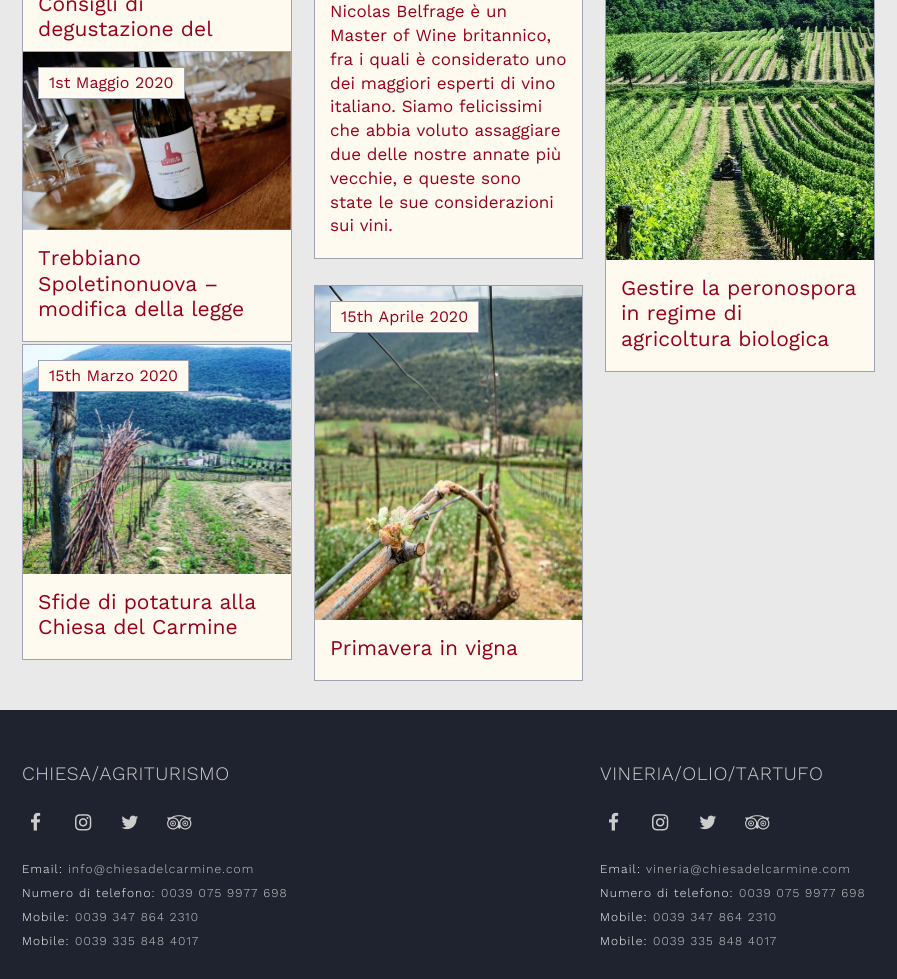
import math
import cairo

surface = cairo.ImageSurface(cairo.FORMAT_RGB24, 897, 979)
ctx = cairo.Context(surface)
options = cairo.FontOptions()
options.set_hint_metrics(cairo.HINT_METRICS_OFF)
options.set_hint_style(cairo.HINT_STYLE_NONE)
ctx.set_font_options(options)
ctx.set_miter_limit(4)


def set_color(code):
    ctx.set_source_rgb(*(v / 255 for v in bytes.fromhex(code[-6:])))


def draw_text(x, y, s, family, size, color, bold=False, italic=False):
    ctx.select_font_face(family, cairo.FONT_SLANT_ITALIC if italic else cairo.FONT_SLANT_NORMAL, cairo.FONT_WEIGHT_BOLD if bold else cairo.FONT_WEIGHT_NORMAL)
    ctx.set_font_size(size)
    set_color(color)
    ctx.move_to(x, y)
    ctx.show_text(s)


def draw_spaced(x, y, s, letter, word):
    ctx.move_to(x, y)
    for ch in s:
        ctx.show_text(ch)
        ctx.rel_move_to(letter + word * (ch == ' '), 0)


def fill_rect(x, y, w, h, color):
    set_color(color)
    ctx.rectangle(x, y, w, h)
    ctx.fill()


def draw_image(path, x, y, w, h):
    ctx.save()
    ctx.set_source_surface(cairo.ImageSurface.create_from_png(path), x, y)
    ctx.rectangle(x, y, w, h)
    ctx.fill()
    ctx.restore()


set_color("#1f232f")
ctx.paint()
fill_rect(0, 0, 897, 710, "#e9e9e9")
fill_rect(23, 0, 268, 51, "#fffaef")
ctx.rectangle(22.5, -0.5, 269, 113)
set_color("#9fa3b3")
ctx.set_line_width(1)
ctx.stroke()
draw_text(38, 11, "Consigli di", "Work Sans", 21, "#960018")
draw_text(38, 36, "degustazione del", "Work Sans", 21, "#960018")
set_color("#fffaef")
ctx.rectangle(314.5, -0.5, 268, 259)
ctx.fill_preserve()
set_color("#9fa3b3")
ctx.stroke()
draw_text(330, 17, "Nicolas Belfrage è un", "Work Sans", 17, "#960018")
draw_text(330, 41, "Master of Wine britannico,", "Work Sans", 17, "#960018")
draw_text(330, 65, "fra i quali è considerato uno", "Work Sans", 17, "#960018")
draw_text(330, 89, "dei maggiori esperti di vino", "Work Sans", 17, "#960018")
draw_text(330, 112, "italiano. Siamo felicissimi", "Work Sans", 17, "#960018")
draw_text(330, 136, "che abbia voluto assaggiare", "Work Sans", 17, "#960018")
draw_text(330, 160, "due delle nostre annate più", "Work Sans", 17, "#960018")
draw_text(330, 184, "vecchie, e queste sono", "Work Sans", 17, "#960018")
draw_text(330, 208, "state le sue considerazioni", "Work Sans", 17, "#960018")
draw_text(330, 231, "sui vini.", "Work Sans", 17, "#960018")
set_color("#fffaef")
ctx.rectangle(22.5, 51.5, 269, 290)
ctx.fill_preserve()
set_color("#9fa3b3")
ctx.stroke()
draw_image("assets/img1.png", 23, 52, 268, 178)
set_color("#fffaef")
ctx.rectangle(38.5, 67.5, 146, 31)
ctx.fill_preserve()
set_color("#9fa3b3")
ctx.stroke()
draw_text(49, 88, "1st Maggio 2020", "Work Sans", 16, "#960018")
draw_text(38, 265, "Trebbiano", "Work Sans", 21, "#960018")
draw_text(38, 291, "Spoletinonuova –", "Work Sans", 21, "#960018")
draw_text(38, 316, "modifica della legge", "Work Sans", 21, "#960018")
fill_rect(315, 620, 267, 60, "#fffaef")
ctx.rectangle(314.5, 285.5, 268, 395)
set_color("#9fa3b3")
ctx.stroke()
draw_image("assets/img2.png", 315, 286, 267, 334)
set_color("#fffaef")
ctx.rectangle(330.5, 301.5, 148, 31)
ctx.fill_preserve()
set_color("#9fa3b3")
ctx.stroke()
draw_text(341, 322, "15th Aprile 2020", "Work Sans", 16, "#960018")
draw_text(330, 655, "Primavera in vigna", "Work Sans", 21, "#960018")
fill_rect(606, 260, 268, 111, "#fffaef")
ctx.rectangle(605.5, -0.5, 269, 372)
set_color("#9fa3b3")
ctx.stroke()
draw_image("assets/img3.png", 606, 0, 268, 260)
draw_text(621, 295, "Gestire la peronospora", "Work Sans", 21, "#960018")
draw_text(621, 320, "in regime di", "Work Sans", 21, "#960018")
draw_text(621, 346, "agricoltura biologica", "Work Sans", 21, "#960018")
set_color("#fffaef")
ctx.rectangle(22.5, 344.5, 269, 315)
ctx.fill_preserve()
set_color("#9fa3b3")
ctx.stroke()
draw_image("assets/img4.png", 23, 345, 268, 229)
set_color("#fffaef")
ctx.rectangle(38.5, 360.5, 150, 31)
ctx.fill_preserve()
set_color("#9fa3b3")
ctx.stroke()
draw_text(49, 381, "15th Marzo 2020", "Work Sans", 16, "#960018")
draw_text(38, 609, "Sfide di potatura alla", "Work Sans", 21, "#960018")
draw_text(38, 634, "Chiesa del Carmine", "Work Sans", 21, "#960018")
ctx.select_font_face("Work Sans Light")
ctx.set_font_size(19)
set_color("#cccccc")
draw_spaced(22, 780, "CHIESA/AGRITURISMO", 0.5, 0)
draw_image("assets/img5.png", 31, 812, 10, 19)
draw_image("assets/img6.png", 75, 814, 17, 17)
draw_image("assets/img7.png", 121, 815, 17, 15)
draw_image("assets/img8.png", 167, 815, 25, 15)
ctx.set_font_size(12)
set_color("#ffffff")
draw_spaced(22, 873, "Email:", 1.1, 0)
set_color("#cccccc")
draw_spaced(68, 873, "info@chiesadelcarmine.com", 1.1, 0)
set_color("#ffffff")
draw_spaced(22, 897, "Numero di telefono:", 1.1, 0)
set_color("#cccccc")
draw_spaced(161, 897, "0039 075 9977 698", 1.1, 0)
set_color("#ffffff")
draw_spaced(22, 921, "Mobile:", 1.1, 0)
set_color("#cccccc")
draw_spaced(75, 921, "0039 347 864 2310", 1.1, 0)
set_color("#ffffff")
draw_spaced(22, 945, "Mobile:", 1.1, 0)
set_color("#cccccc")
draw_spaced(75, 945, "0039 335 848 4017", 1.1, 0)
ctx.set_font_size(19)
draw_spaced(600, 780, "VINERIA/OLIO/TARTUFO", 0.5, 0)
draw_image("assets/img5.png", 609, 812, 10, 19)
draw_image("assets/img6.png", 652, 814, 17, 17)
draw_image("assets/img7.png", 699, 815, 17, 15)
draw_image("assets/img8.png", 745, 815, 25, 15)
ctx.set_font_size(12)
set_color("#ffffff")
draw_spaced(600, 873, "Email:", 1.1, 0)
set_color("#cccccc")
draw_spaced(646, 873, "vineria@chiesadelcarmine.com", 1.1, 0)
set_color("#ffffff")
draw_spaced(600, 897, "Numero di telefono:", 1.1, 0)
set_color("#cccccc")
draw_spaced(739, 897, "0039 075 9977 698", 1.1, 0)
set_color("#ffffff")
draw_spaced(600, 921, "Mobile:", 1.1, 0)
set_color("#cccccc")
draw_spaced(653, 921, "0039 347 864 2310", 1.1, 0)
set_color("#ffffff")
draw_spaced(600, 945, "Mobile:", 1.1, 0)
set_color("#cccccc")
draw_spaced(653, 945, "0039 335 848 4017", 1.1, 0)
surface.write_to_png("output.png")
